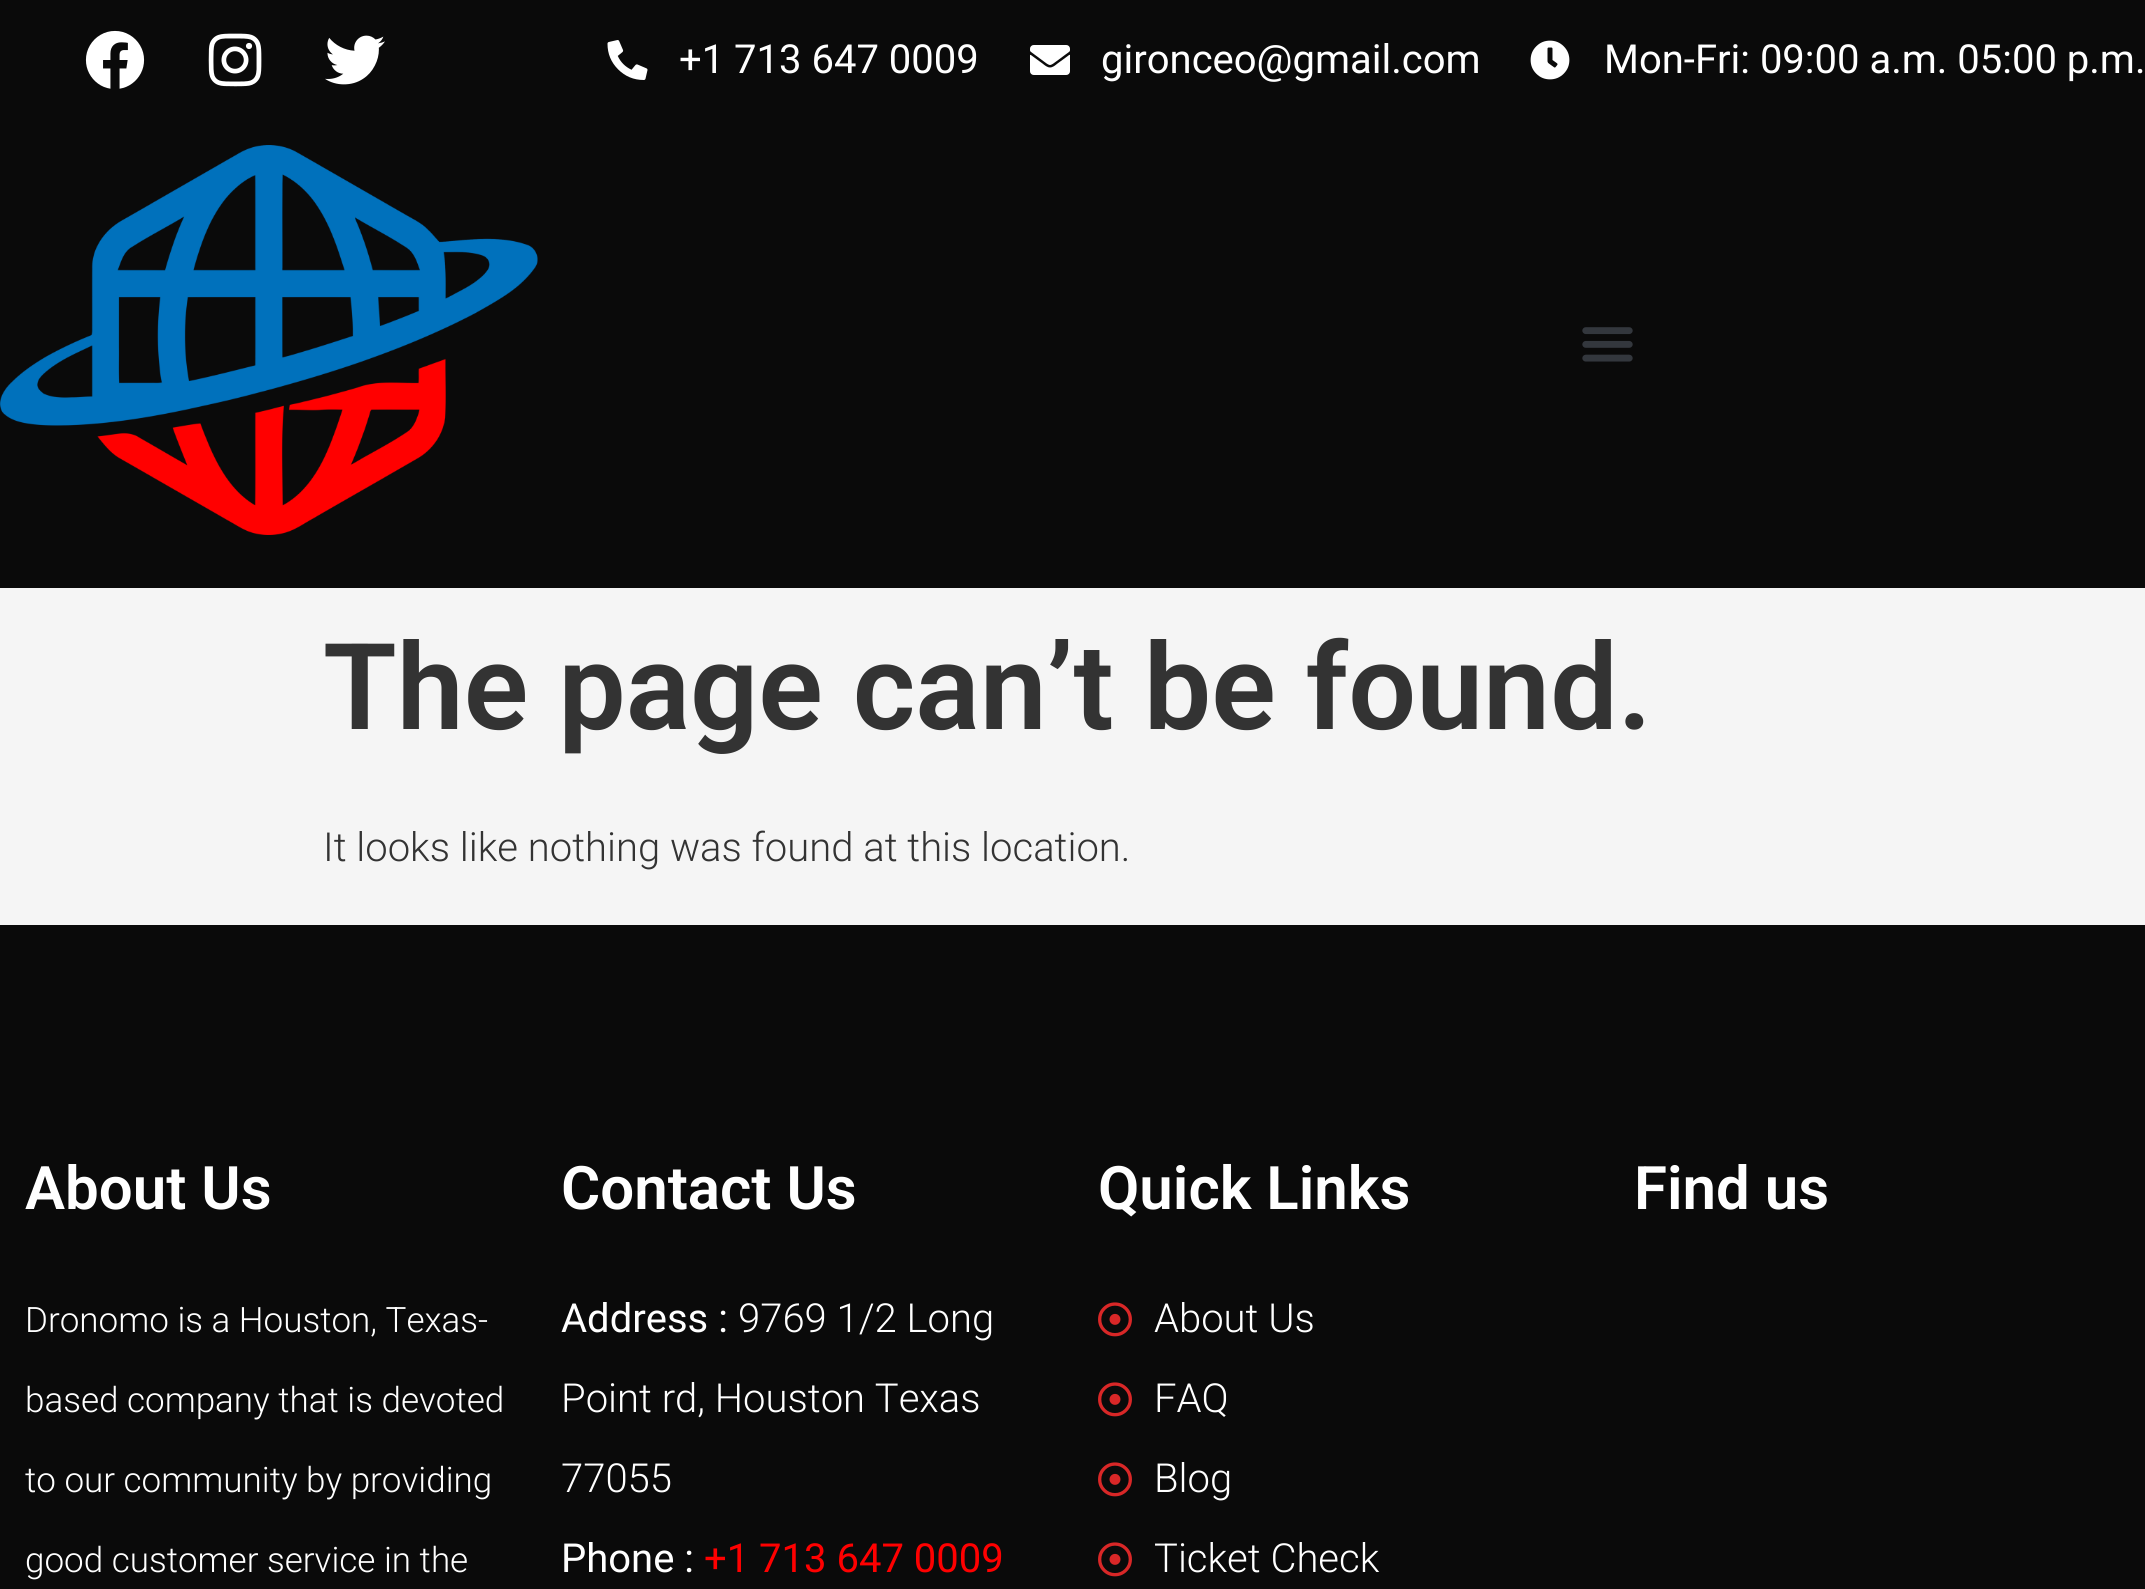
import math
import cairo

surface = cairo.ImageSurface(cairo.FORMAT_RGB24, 2145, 1589)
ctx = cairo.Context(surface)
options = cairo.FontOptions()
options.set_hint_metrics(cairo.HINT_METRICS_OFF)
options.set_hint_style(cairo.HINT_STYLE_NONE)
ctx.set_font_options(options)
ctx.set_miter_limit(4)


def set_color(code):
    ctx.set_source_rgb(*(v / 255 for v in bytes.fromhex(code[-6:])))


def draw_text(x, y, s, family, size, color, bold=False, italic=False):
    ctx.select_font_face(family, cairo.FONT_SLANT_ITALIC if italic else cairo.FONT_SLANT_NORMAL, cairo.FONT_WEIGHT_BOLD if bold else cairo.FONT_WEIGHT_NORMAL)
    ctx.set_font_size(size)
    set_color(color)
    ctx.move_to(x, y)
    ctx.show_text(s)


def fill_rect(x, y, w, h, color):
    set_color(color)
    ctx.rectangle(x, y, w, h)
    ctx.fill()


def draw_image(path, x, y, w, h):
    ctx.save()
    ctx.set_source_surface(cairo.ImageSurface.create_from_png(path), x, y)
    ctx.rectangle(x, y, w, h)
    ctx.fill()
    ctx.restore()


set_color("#f5f5f5")
ctx.paint()
fill_rect(0, 0, 2145, 588, "#0a0a0a")
draw_image("assets/img1.png", 85, 30, 60, 59)
draw_image("assets/img2.png", 208, 33, 54, 54)
draw_image("assets/img3.png", 325, 35, 60, 50)
draw_image("assets/img4.png", 607, 40, 41, 40)
draw_text(679, 73, "+1 713 647 0009", "Roboto", 40, "#ffffff")
draw_image("assets/img5.png", 1030, 45, 40, 30)
draw_text(1101, 73, "gironceo@gmail.com", "Roboto", 40, "#ffffff")
draw_image("assets/img6.png", 1530, 40, 40, 40)
draw_text(1604, 73, "Mon-Fri: 09:00 a.m. 05:00 p.m.", "Roboto", 40, "#ffffff")
draw_image("assets/img7.png", 0, 145, 538, 390)
draw_image("assets/img8.png", 1582, 327, 51, 35)
draw_text(323, 729, "The page can’t be found.", "Roboto SemiBold", 120, "#333333")
draw_text(323, 861, "It looks like nothing was found at this location.", "Roboto Light", 40, "#333333")
fill_rect(0, 925, 2145, 664, "#0a0a0a")
draw_text(25, 1209, "About Us", "Roboto SemiBold", 60, "#ffffff")
draw_text(25, 1332, "Dronomo is a Houston, Texas-", "Roboto Light", 35, "#ffffff")
draw_text(25, 1412, "based company that is devoted", "Roboto Light", 35, "#ffffff")
draw_text(25, 1492, "to our community by providing", "Roboto Light", 35, "#ffffff")
draw_text(25, 1572, "good customer service in the", "Roboto Light", 35, "#ffffff")
draw_text(561, 1209, "Contact Us", "Roboto SemiBold", 60, "#ffffff")
draw_text(561, 1332, "Address :", "Roboto", 40, "#ffffff")
draw_text(738, 1332, "9769 1/2 Long", "Roboto Light", 40, "#ffffff")
draw_text(561, 1412, "Point rd, Houston Texas", "Roboto Light", 40, "#ffffff")
draw_text(561, 1492, "77055", "Roboto Light", 40, "#ffffff")
draw_text(561, 1572, "Phone :", "Roboto", 40, "#ffffff")
draw_text(704, 1572, "+1 713 647 0009", "Roboto", 40, "#ff0000")
draw_text(1098, 1209, "Quick Links", "Roboto SemiBold", 60, "#ffffff")
draw_image("assets/img9.png", 1098, 1302, 34, 35)
draw_text(1154, 1332, "About Us", "Roboto Light", 40, "#ffffff")
draw_image("assets/img9.png", 1098, 1382, 34, 35)
draw_text(1154, 1412, "FAQ", "Roboto Light", 40, "#ffffff")
draw_image("assets/img9.png", 1098, 1462, 34, 35)
draw_text(1154, 1492, "Blog", "Roboto Light", 40, "#ffffff")
draw_image("assets/img9.png", 1098, 1542, 34, 35)
draw_text(1154, 1572, "Ticket Check", "Roboto Light", 40, "#ffffff")
draw_text(1634, 1209, "Find us", "Roboto SemiBold", 60, "#ffffff")
surface.write_to_png("output.png")
